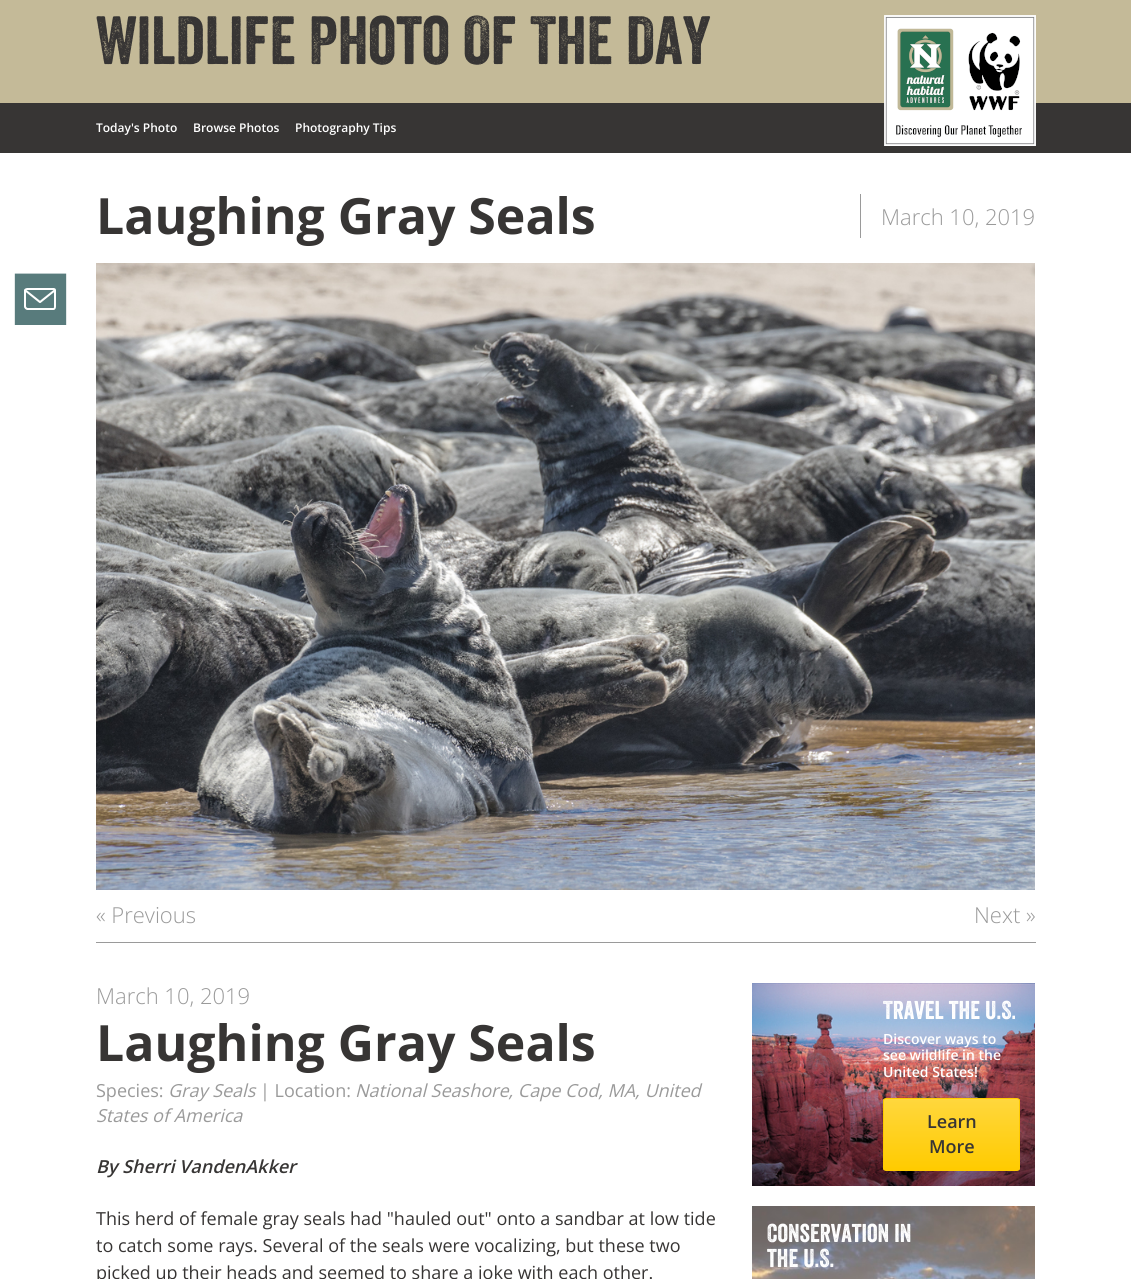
import math
import cairo

surface = cairo.ImageSurface(cairo.FORMAT_RGB24, 1131, 1279)
ctx = cairo.Context(surface)
options = cairo.FontOptions()
options.set_hint_metrics(cairo.HINT_METRICS_OFF)
options.set_hint_style(cairo.HINT_STYLE_NONE)
ctx.set_font_options(options)
ctx.set_miter_limit(4)


def set_color(code):
    ctx.set_source_rgb(*(v / 255 for v in bytes.fromhex(code[-6:])))


def draw_text(x, y, s, family, size, color, bold=False, italic=False):
    ctx.select_font_face(family, cairo.FONT_SLANT_ITALIC if italic else cairo.FONT_SLANT_NORMAL, cairo.FONT_WEIGHT_BOLD if bold else cairo.FONT_WEIGHT_NORMAL)
    ctx.set_font_size(size)
    set_color(color)
    ctx.move_to(x, y)
    ctx.show_text(s)


def fill_rect(x, y, w, h, color):
    set_color(color)
    ctx.rectangle(x, y, w, h)
    ctx.fill()


def rounded_rect(x, y, w, h, r):
    ctx.new_sub_path()
    for i, (u, v) in enumerate([(x + w - r, y + h - r), (x + r, y + h - r), (x + r, y + r), (x + w - r, y + r)]):
        ctx.arc(u, v, r, i * math.pi / 2, (i + 1) * math.pi / 2)
    ctx.close_path()


def draw_image(path, x, y, w, h):
    ctx.save()
    ctx.set_source_surface(cairo.ImageSurface.create_from_png(path), x, y)
    ctx.rectangle(x, y, w, h)
    ctx.fill()
    ctx.restore()


set_color("#373534")
ctx.paint()
fill_rect(0, 0, 1131, 103, "#c4ba98")
draw_text(96, 64, "Wildlife Photo Of The Day", "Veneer", 66, "#373534")
draw_image("assets/img1.png", 884, 15, 152, 131)
draw_text(96, 132, "Today's Photo", "Open Sans SemiBold", 12, "#ffffff")
draw_text(193, 132, "Browse Photos", "Open Sans SemiBold", 12, "#ffffff")
draw_text(295, 132, "Photography Tips", "Open Sans SemiBold", 12, "#ffffff")
fill_rect(0, 153, 1131, 1126, "#ffffff")
draw_image("assets/img2.png", 14, 273, 53, 52)
draw_text(96, 234, "Laughing Gray Seals", "Open Sans", 50, "#373534", bold=True)
fill_rect(860, 194, 1, 44, "#9a9a9a")
draw_text(881, 225, "March 10, 2019", "Open Sans Light", 22, "#9a9a9a")
draw_image("assets/img3.png", 96, 263, 939, 627)
fill_rect(96, 942, 940, 1, "#9a9a9a")
draw_text(96, 923, "« Previous", "Open Sans Light", 22, "#9a9a9a")
draw_text(974, 923, "Next »", "Open Sans Light", 22, "#9a9a9a")
draw_text(96, 1004, "March 10, 2019", "Open Sans Light", 22, "#9a9a9a")
draw_text(96, 1061, "Laughing Gray Seals", "Open Sans", 50, "#373534", bold=True)
draw_text(96, 1097, "Species:", "Open Sans", 18, "#9a9a9a")
draw_text(168, 1097, "Gray Seals", "Open Sans", 18, "#9a9a9a", italic=True)
draw_text(260, 1097, "| Location:", "Open Sans", 18, "#9a9a9a")
draw_text(355, 1097, "National Seashore, Cape Cod, MA, United", "Open Sans", 18, "#9a9a9a", italic=True)
draw_text(96, 1122, "States of America", "Open Sans", 18, "#9a9a9a", italic=True)
draw_text(96, 1173, "By Sherri VandenAkker", "Open Sans SemiBold", 18, "#373534", italic=True)
draw_text(96, 1225, "This herd of female gray seals had \"hauled out\" onto a sandbar at low tide", "Open Sans", 18, "#373534")
draw_text(96, 1252, "to catch some rays. Several of the seals were vocalizing, but these two", "Open Sans", 18, "#373534")
draw_text(96, 1279, "picked up their heads and seemed to share a joke with each other.", "Open Sans", 18, "#373534")
draw_image("assets/img4.png", 752, 983, 283, 203)
draw_text(883, 1019, "Travel the U.S.", "Veneer", 25, "#ffffff")
draw_text(883, 1044, "Discover ways to", "Open Sans SemiBold", 14, "#ffffff")
draw_text(883, 1060, "see wildlife in the", "Open Sans SemiBold", 14, "#ffffff")
draw_text(883, 1077, "United States!", "Open Sans SemiBold", 14, "#ffffff")
ctx.save()
rounded_rect(883, 1098, 137, 73, 3)
ctx.clip()
gradient = cairo.LinearGradient(952, 1099, 952, 1170)
gradient.add_color_stop_rgba(0, 1, 0.843, 0.239, 1)
gradient.add_color_stop_rgba(1, 1, 0.796, 0, 1)
ctx.set_source(gradient)
ctx.rectangle(883, 1099, 137, 71)
ctx.fill()
ctx.restore()
rounded_rect(883.5, 1098.5, 136, 72, 2.5)
set_color("#ffcb00")
ctx.set_line_width(1)
ctx.stroke()
draw_text(927, 1128, "Learn", "Open Sans SemiBold", 18, "#373534")
draw_text(929, 1153, "More", "Open Sans SemiBold", 18, "#373534")
draw_image("assets/img5.png", 752, 1206, 283, 73)
draw_text(767, 1242, "Conservation in", "Veneer", 25, "#ffffff")
draw_text(767, 1267, "the U.S.", "Veneer", 25, "#ffffff")
surface.write_to_png("output.png")
